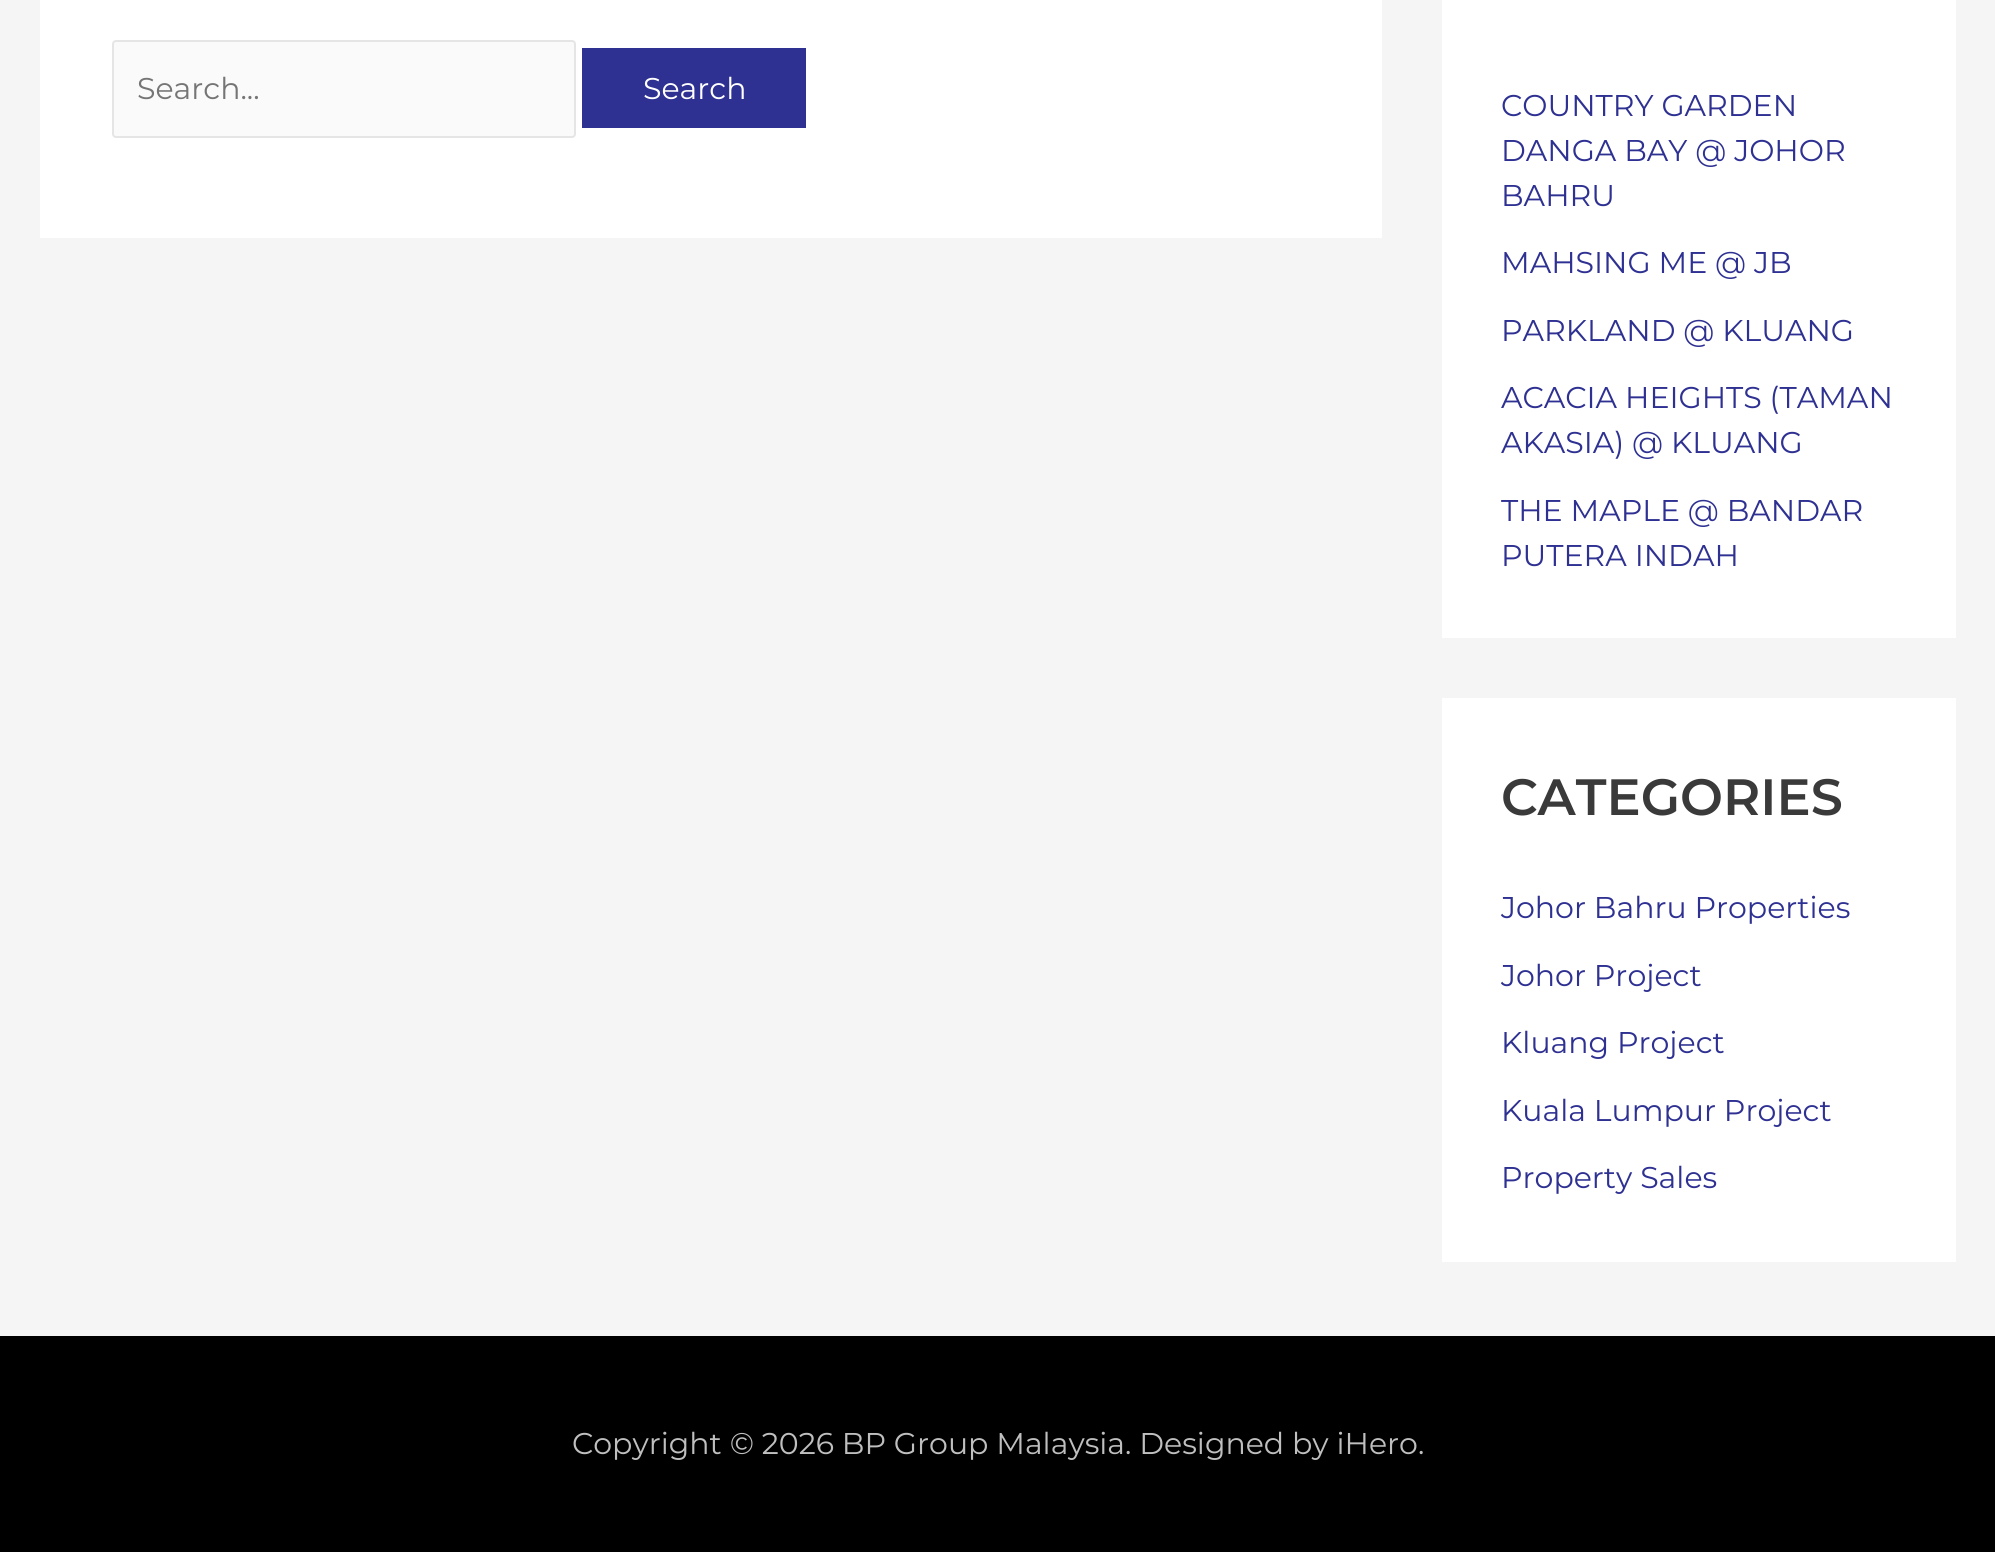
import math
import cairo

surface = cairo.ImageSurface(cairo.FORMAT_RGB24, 1995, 1552)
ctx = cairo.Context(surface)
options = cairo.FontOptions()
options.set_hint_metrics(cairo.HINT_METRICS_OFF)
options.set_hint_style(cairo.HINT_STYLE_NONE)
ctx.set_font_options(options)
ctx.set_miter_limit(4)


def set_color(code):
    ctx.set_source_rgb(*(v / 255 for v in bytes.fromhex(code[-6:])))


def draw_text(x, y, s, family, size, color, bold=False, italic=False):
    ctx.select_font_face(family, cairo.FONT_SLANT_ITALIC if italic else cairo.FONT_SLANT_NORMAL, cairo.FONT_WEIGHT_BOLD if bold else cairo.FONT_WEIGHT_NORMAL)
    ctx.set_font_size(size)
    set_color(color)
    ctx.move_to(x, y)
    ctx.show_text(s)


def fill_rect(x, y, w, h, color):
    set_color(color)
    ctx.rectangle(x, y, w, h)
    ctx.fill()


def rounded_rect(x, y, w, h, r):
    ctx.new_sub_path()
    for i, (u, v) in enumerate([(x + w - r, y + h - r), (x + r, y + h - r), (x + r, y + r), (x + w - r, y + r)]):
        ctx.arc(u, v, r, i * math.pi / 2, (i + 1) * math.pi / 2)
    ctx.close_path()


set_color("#f5f5f5")
ctx.paint()
fill_rect(40, 0, 1342, 238, "#ffffff")
set_color("#fafafa")
rounded_rect(113, 41, 462, 96, 3)
ctx.fill_preserve()
set_color("#e5e5e5")
ctx.stroke()
draw_text(137, 99, "Search...", "Montserrat", 30, "#757575")
fill_rect(582, 48, 224, 80, "#2e3192")
draw_text(643, 99, "Search", "Montserrat", 30, "#ffffff")
fill_rect(1442, 0, 514, 638, "#ffffff")
draw_text(1501, 116, "COUNTRY GARDEN", "Montserrat", 30, "#2e3192")
draw_text(1501, 161, "DANGA BAY @ JOHOR", "Montserrat", 30, "#2e3192")
draw_text(1501, 206, "BAHRU", "Montserrat", 30, "#2e3192")
draw_text(1501, 273, "MAHSING ME @ JB", "Montserrat", 30, "#2e3192")
draw_text(1501, 341, "PARKLAND @ KLUANG", "Montserrat", 30, "#2e3192")
draw_text(1501, 408, "ACACIA HEIGHTS (TAMAN", "Montserrat", 30, "#2e3192")
draw_text(1501, 453, "AKASIA) @ KLUANG", "Montserrat", 30, "#2e3192")
draw_text(1501, 521, "THE MAPLE @ BANDAR", "Montserrat", 30, "#2e3192")
draw_text(1501, 566, "PUTERA INDAH", "Montserrat", 30, "#2e3192")
fill_rect(1442, 698, 514, 564, "#ffffff")
draw_text(1501, 815, "CATEGORIES", "Montserrat SemiBold", 51, "#3a3a3a")
draw_text(1501, 918, "Johor Bahru Properties", "Montserrat", 30, "#2e3192")
draw_text(1501, 986, "Johor Project", "Montserrat", 30, "#2e3192")
draw_text(1501, 1053, "Kluang Project", "Montserrat", 30, "#2e3192")
draw_text(1501, 1121, "Kuala Lumpur Project", "Montserrat", 30, "#2e3192")
draw_text(1501, 1188, "Property Sales", "Montserrat", 30, "#2e3192")
fill_rect(0, 1336, 1995, 216, "#000000")
draw_text(572, 1454, "Copyright © 2026 BP Group Malaysia. Designed by iHero.", "Montserrat", 30, "#bfbfbf")
surface.write_to_png("output.png")
